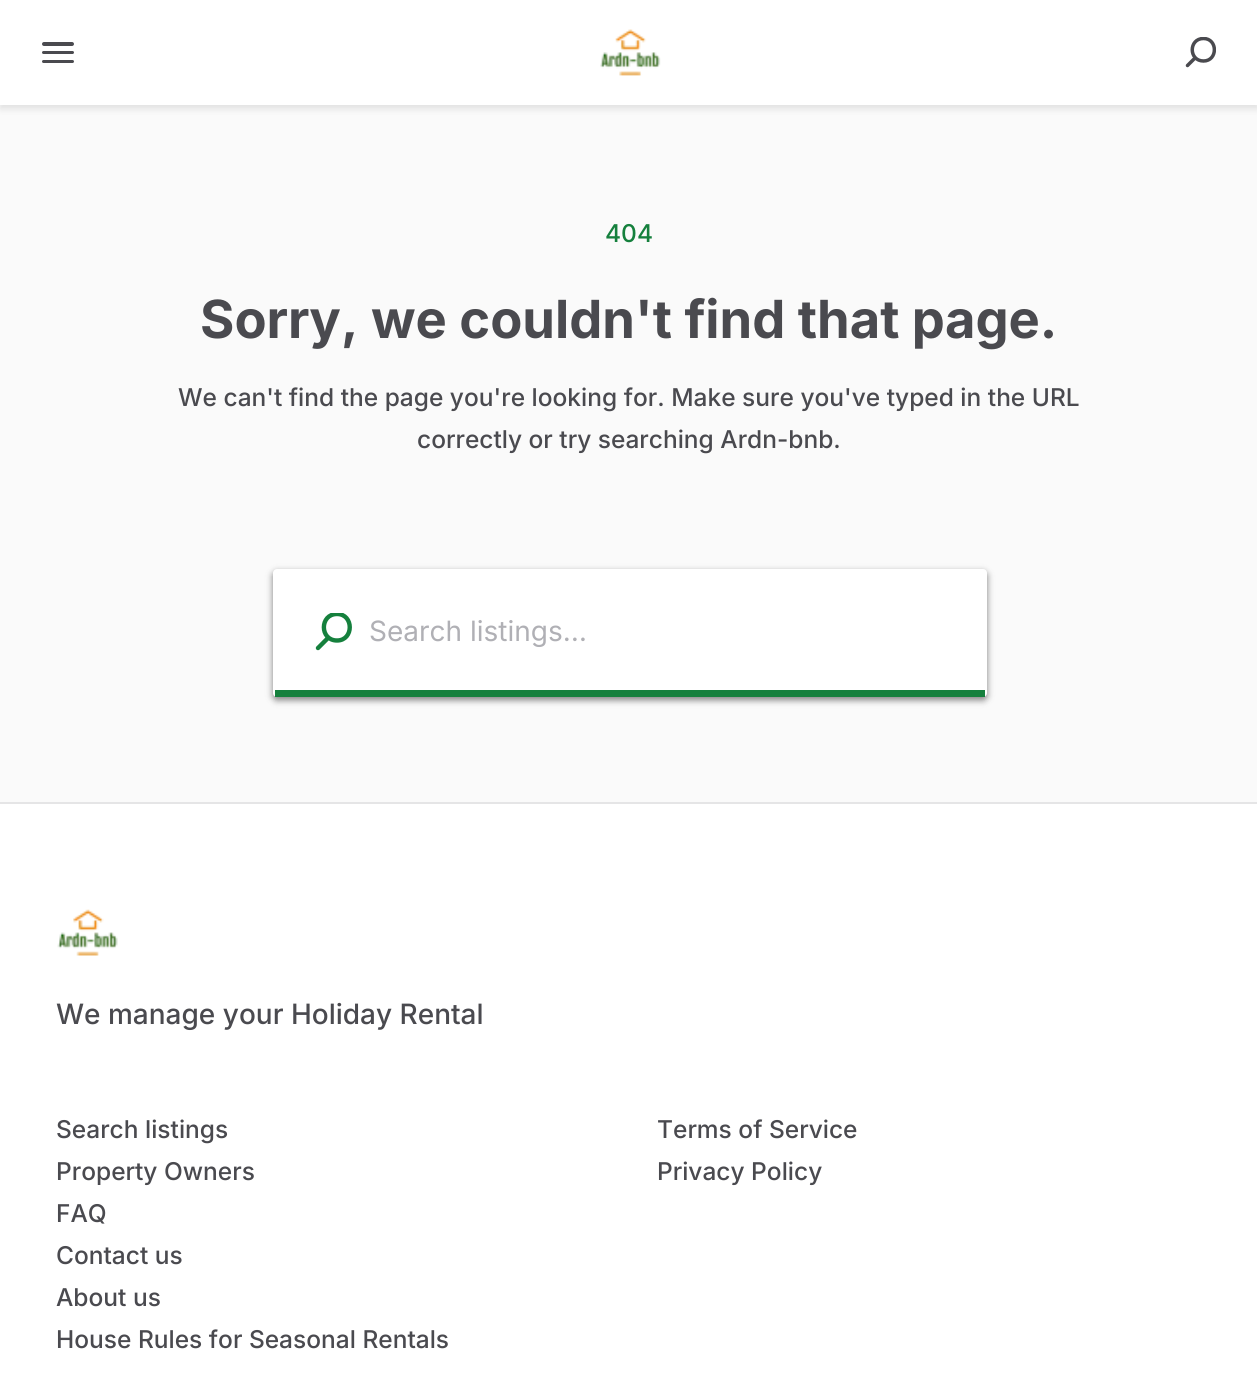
import math
import cairo

surface = cairo.ImageSurface(cairo.FORMAT_RGB24, 1257, 1389)
ctx = cairo.Context(surface)
options = cairo.FontOptions()
options.set_hint_metrics(cairo.HINT_METRICS_OFF)
options.set_hint_style(cairo.HINT_STYLE_NONE)
ctx.set_font_options(options)
ctx.set_miter_limit(4)


def set_color(code):
    ctx.set_source_rgb(*(v / 255 for v in bytes.fromhex(code[-6:])))


def draw_text(x, y, s, family, size, color, bold=False, italic=False):
    ctx.select_font_face(family, cairo.FONT_SLANT_ITALIC if italic else cairo.FONT_SLANT_NORMAL, cairo.FONT_WEIGHT_BOLD if bold else cairo.FONT_WEIGHT_NORMAL)
    ctx.set_font_size(size)
    set_color(color)
    ctx.move_to(x, y)
    ctx.show_text(s)


def fill_rect(x, y, w, h, color):
    set_color(color)
    ctx.rectangle(x, y, w, h)
    ctx.fill()


def rounded_rect(x, y, w, h, r):
    ctx.new_sub_path()
    for i, (u, v) in enumerate([(x + w - r, y + h - r), (x + r, y + h - r), (x + r, y + r), (x + w - r, y + r)]):
        ctx.arc(u, v, r, i * math.pi / 2, (i + 1) * math.pi / 2)
    ctx.close_path()


def draw_shadow(x, y, w, h, r, blur, alpha):
    ctx.push_group_with_content(cairo.CONTENT_ALPHA)
    ctx.set_operator(cairo.OPERATOR_SOURCE)
    for i in range(15, -16, -2):
        e = blur * i / 6
        if min(w, h) + 2 * e > 0:
            ctx.set_source_rgba(0, 0, 0, alpha * math.erfc((i - 1) / 8.5) / 2)
            rounded_rect(x - e, y - e, w + 2 * e, h + 2 * e, max(0, min(r + e + blur * .6, min(w, h) / 2 + e)))
            ctx.fill()
    ctx.mask(ctx.pop_group())


def draw_image(path, x, y, w, h):
    ctx.save()
    ctx.set_source_surface(cairo.ImageSurface.create_from_png(path), x, y)
    ctx.rectangle(x, y, w, h)
    ctx.fill()
    ctx.restore()


set_color("#fafafa")
ctx.paint()
set_color("#000000")
draw_shadow(0, 4, 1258, 105, 0, 3.5, 0.1)
fill_rect(0, 0, 1257, 105, "#ffffff")
set_color("#4a4a4f")
rounded_rect(42, 42, 32, 4, 2)
ctx.fill()
rounded_rect(42, 51, 32, 3, 1.5)
ctx.fill()
rounded_rect(42, 60, 32, 3, 1.5)
ctx.fill()
draw_image("assets/img1.png", 600, 29, 61, 47)
ctx.new_path()
ctx.move_to(1194, 59)
ctx.line_to(1187.5, 65.5)
ctx.set_line_width(3.5)
ctx.set_line_cap(cairo.LINE_CAP_ROUND)
ctx.set_line_join(cairo.LINE_JOIN_ROUND)
ctx.stroke()
ctx.save()
ctx.rectangle(1185, 37, 31, 31)
ctx.clip()
ctx.new_path()
ctx.move_to(1203.5, 38.5)
ctx.curve_to(1188.5, 38.5, 1188.5, 61, 1203.5, 61)
ctx.curve_to(1218, 61, 1218, 38.5, 1203.5, 38.5)
ctx.close_path()
ctx.stroke()
ctx.restore()
draw_text(605, 242, "404", "Inter Medium", 24.5, "#15803d")
draw_text(200, 338, "Sorry, we couldn't find that page.", "Inter", 52.5, "#4a4a4f", bold=True)
draw_text(178, 406, "We can't find the page you're looking for. Make sure you've typed in the URL", "Inter Medium", 24.5, "#4a4a4f")
draw_text(417, 448, "correctly or try searching Ardn-bnb.", "Inter Medium", 24.5, "#4a4a4f")
set_color("#000000")
draw_shadow(273, 572, 714, 128, 4, 3.5, 0.5)
set_color("#ffffff")
rounded_rect(273, 569, 714, 128, 4)
ctx.fill()
fill_rect(275, 690, 710, 7, "#15803d")
ctx.new_path()
ctx.move_to(327, 639)
ctx.line_to(318, 648)
ctx.set_line_width(4.4)
ctx.stroke()
ctx.save()
ctx.rectangle(315, 613, 37, 38)
ctx.clip()
ctx.new_path()
ctx.move_to(337, 614)
ctx.curve_to(319.5, 614, 319.5, 640.5, 337, 640.5)
ctx.curve_to(354, 640.5, 354, 614, 337, 614)
ctx.close_path()
ctx.stroke()
ctx.restore()
draw_text(369, 641, "Search listings…", "Inter", 28, "#b0b0b5")
fill_rect(0, 804, 1257, 585, "#ffffff")
fill_rect(0, 802, 1257, 2, "#e5e5e6")
draw_image("assets/img2.png", 57, 909, 61, 47)
draw_text(56, 1024, "We manage your Holiday Rental", "Inter Medium", 28, "#4a4a4f")
draw_text(56, 1138, "Search listings", "Inter Medium", 24.5, "#4a4a4f")
draw_text(56, 1180, "Property Owners", "Inter Medium", 24.5, "#4a4a4f")
draw_text(56, 1222, "FAQ", "Inter Medium", 24.5, "#4a4a4f")
draw_text(56, 1264, "Contact us", "Inter Medium", 24.5, "#4a4a4f")
draw_text(56, 1306, "About us", "Inter Medium", 24.5, "#4a4a4f")
draw_text(56, 1348, "House Rules for Seasonal Rentals", "Inter Medium", 24.5, "#4a4a4f")
draw_text(657, 1138, "Terms of Service", "Inter Medium", 24.5, "#4a4a4f")
draw_text(657, 1180, "Privacy Policy", "Inter Medium", 24.5, "#4a4a4f")
surface.write_to_png("output.png")
